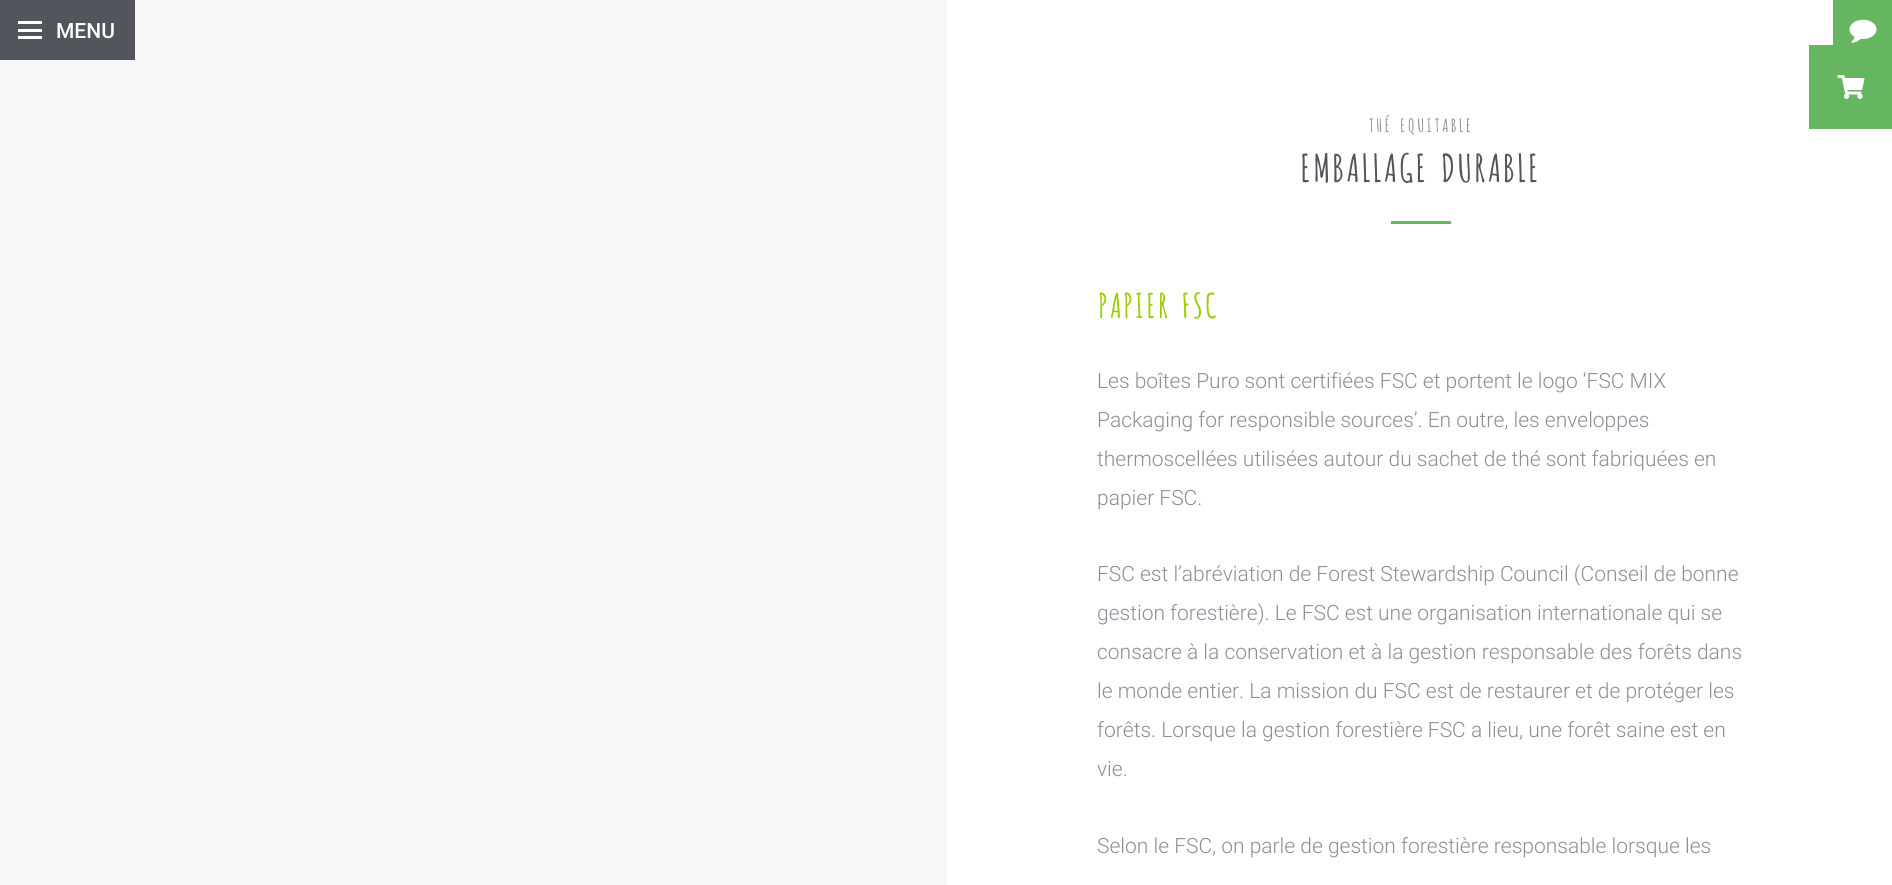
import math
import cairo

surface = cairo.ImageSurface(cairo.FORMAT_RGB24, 1892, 885)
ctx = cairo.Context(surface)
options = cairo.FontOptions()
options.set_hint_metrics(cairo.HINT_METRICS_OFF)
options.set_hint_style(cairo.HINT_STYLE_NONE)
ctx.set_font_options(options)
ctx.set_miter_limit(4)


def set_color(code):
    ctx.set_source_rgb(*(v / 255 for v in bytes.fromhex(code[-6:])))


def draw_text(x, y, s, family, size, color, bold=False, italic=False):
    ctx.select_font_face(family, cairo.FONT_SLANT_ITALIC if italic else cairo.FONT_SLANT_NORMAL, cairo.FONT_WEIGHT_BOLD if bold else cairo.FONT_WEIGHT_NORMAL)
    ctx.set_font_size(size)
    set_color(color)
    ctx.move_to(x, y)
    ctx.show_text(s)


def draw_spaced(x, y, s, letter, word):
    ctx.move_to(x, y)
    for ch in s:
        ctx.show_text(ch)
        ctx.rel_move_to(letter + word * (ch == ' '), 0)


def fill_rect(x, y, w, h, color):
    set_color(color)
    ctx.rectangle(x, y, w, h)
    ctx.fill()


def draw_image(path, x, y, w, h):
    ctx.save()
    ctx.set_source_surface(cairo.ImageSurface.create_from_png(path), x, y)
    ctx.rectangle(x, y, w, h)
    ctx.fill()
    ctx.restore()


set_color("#f7f7f7")
ctx.paint()
fill_rect(0, 0, 135, 60, "#53555c")
fill_rect(18, 21, 24, 3, "#ffffff")
fill_rect(18, 29, 24, 3, "#ffffff")
draw_text(56, 38, "MENU", "Roboto Medium", 21, "#ffffff")
fill_rect(18, 36, 24, 3, "#ffffff")
fill_rect(947, 0, 945, 885, "#ffffff")
fill_rect(1833, 0, 59, 45, "#65b561")
draw_image("assets/img1.png", 1849, 19, 28, 24)
fill_rect(1809, 45, 83, 84, "#65b561")
draw_image("assets/img2.png", 1837, 75, 28, 24)
ctx.select_font_face("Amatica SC", cairo.FONT_SLANT_NORMAL, cairo.FONT_WEIGHT_BOLD)
ctx.set_font_size(18)
set_color("#8b8e97")
draw_spaced(1368, 132, "THÉ EQUITABLE", 1.5, 0)
draw_text(1299, 182, "EMBALLAGE DURABLE", "Amatica SC", 37.75, "#53555c", bold=True)
fill_rect(1391, 221, 60, 3, "#65b561")
draw_text(1097, 318, "PAPIER FSC", "Amatica SC", 33.5, "#99cc00", bold=True)
draw_text(1097, 388, "Les boîtes Puro sont certifiées FSC et portent le logo ‘FSC MIX", "Roboto Light", 21, "#8b8e97")
draw_text(1097, 427, "Packaging for responsible sources’. En outre, les enveloppes", "Roboto Light", 21, "#8b8e97")
draw_text(1097, 466, "thermoscellées utilisées autour du sachet de thé sont fabriquées en", "Roboto Light", 21, "#8b8e97")
draw_text(1097, 505, "papier FSC.", "Roboto Light", 21, "#8b8e97")
draw_text(1097, 581, "FSC est l’abréviation de Forest Stewardship Council (Conseil de bonne", "Roboto Light", 21, "#8b8e97")
draw_text(1097, 620, "gestion forestière). Le FSC est une organisation internationale qui se", "Roboto Light", 21, "#8b8e97")
draw_text(1097, 659, "consacre à la conservation et à la gestion responsable des forêts dans", "Roboto Light", 21, "#8b8e97")
draw_text(1097, 698, "le monde entier. La mission du FSC est de restaurer et de protéger les", "Roboto Light", 21, "#8b8e97")
draw_text(1097, 737, "forêts. Lorsque la gestion forestière FSC a lieu, une forêt saine est en", "Roboto Light", 21, "#8b8e97")
draw_text(1097, 776, "vie.", "Roboto Light", 21, "#8b8e97")
draw_text(1097, 853, "Selon le FSC, on parle de gestion forestière responsable lorsque les", "Roboto Light", 21, "#8b8e97")
surface.write_to_png("output.png")
